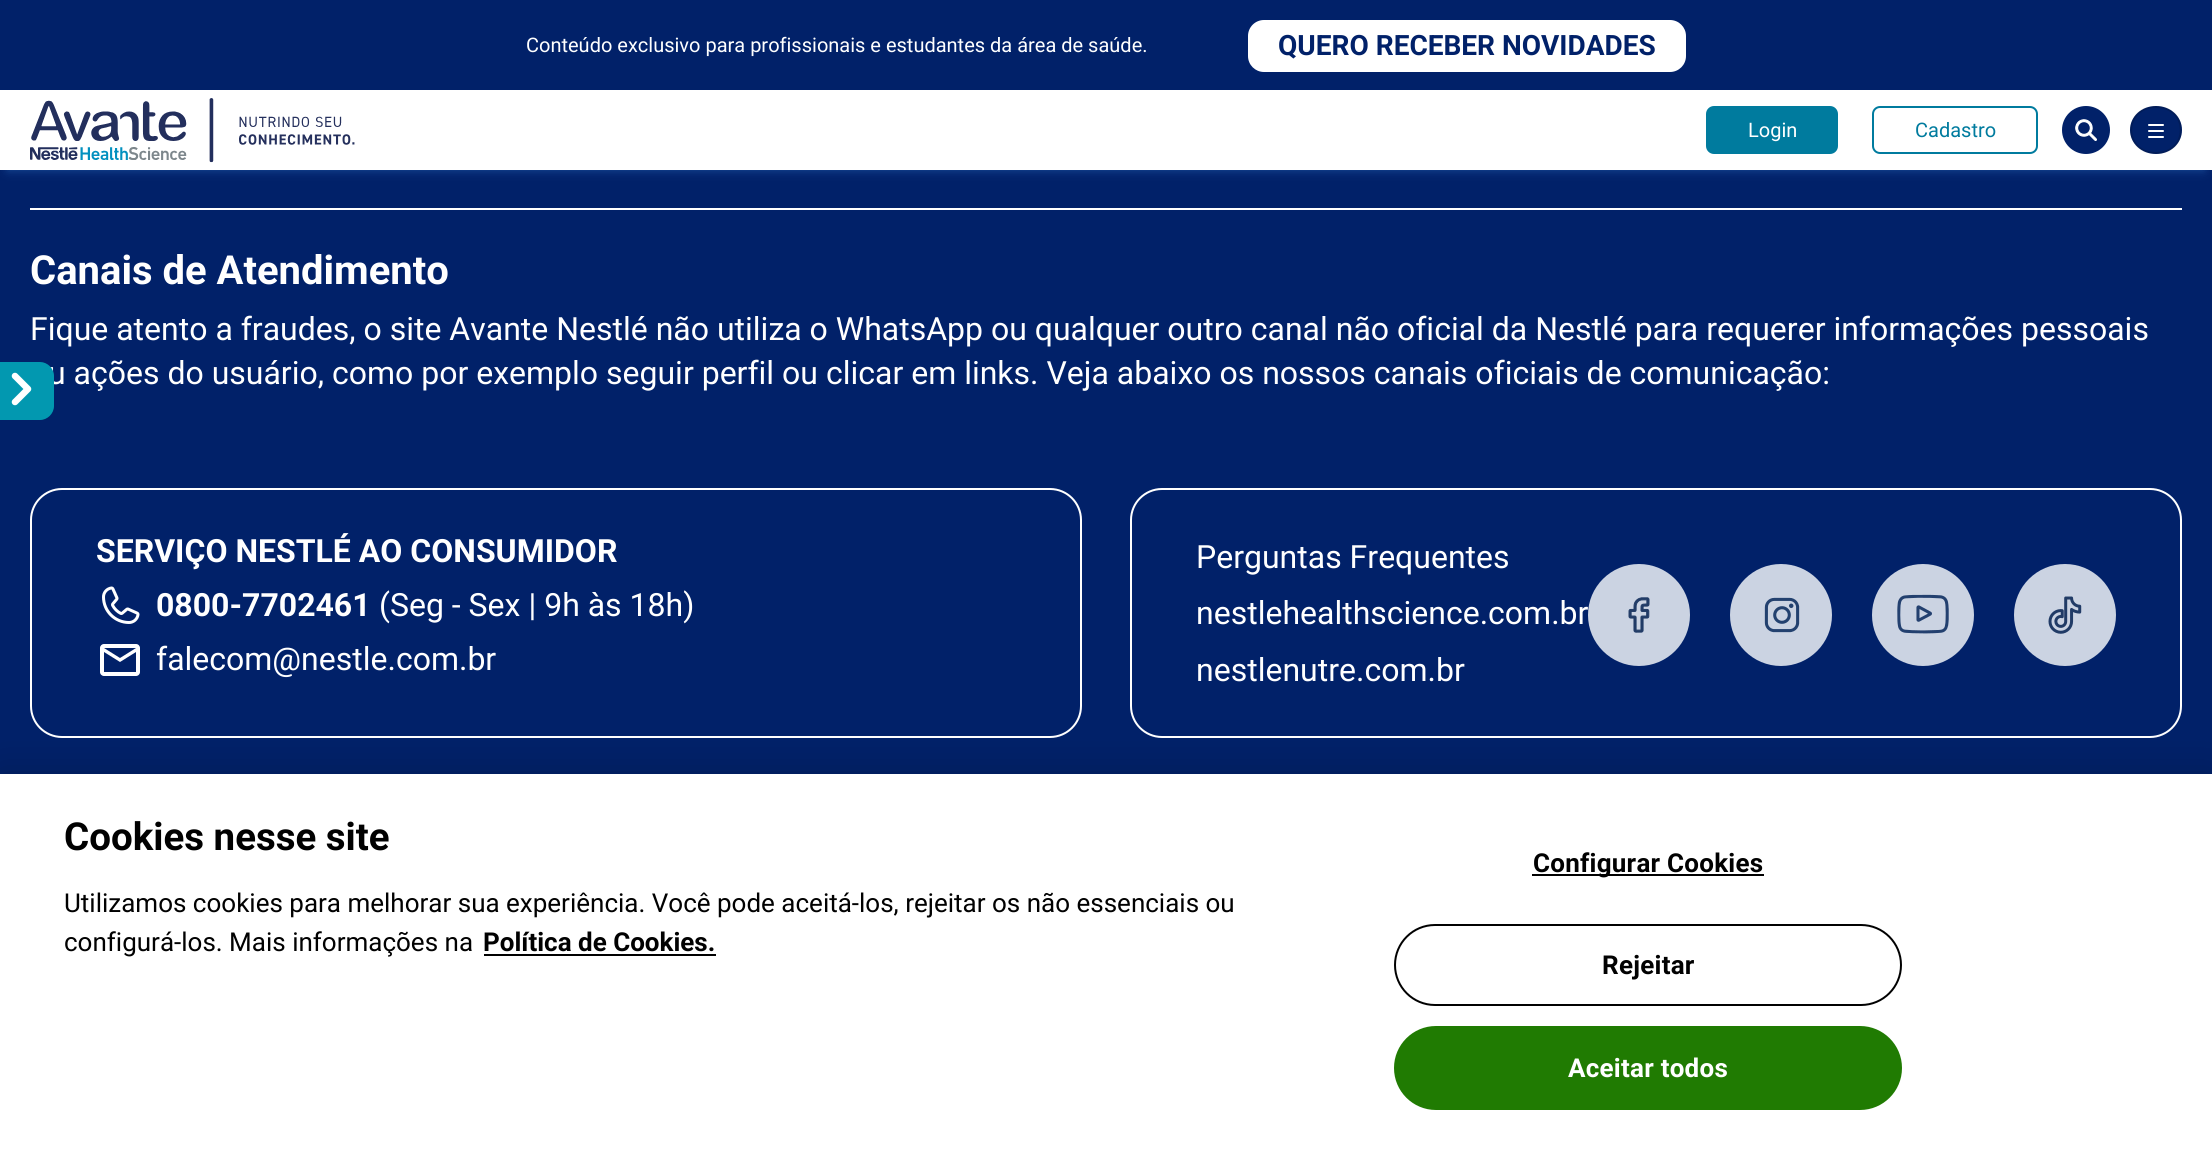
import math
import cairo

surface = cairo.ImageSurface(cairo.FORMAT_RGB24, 2212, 1150)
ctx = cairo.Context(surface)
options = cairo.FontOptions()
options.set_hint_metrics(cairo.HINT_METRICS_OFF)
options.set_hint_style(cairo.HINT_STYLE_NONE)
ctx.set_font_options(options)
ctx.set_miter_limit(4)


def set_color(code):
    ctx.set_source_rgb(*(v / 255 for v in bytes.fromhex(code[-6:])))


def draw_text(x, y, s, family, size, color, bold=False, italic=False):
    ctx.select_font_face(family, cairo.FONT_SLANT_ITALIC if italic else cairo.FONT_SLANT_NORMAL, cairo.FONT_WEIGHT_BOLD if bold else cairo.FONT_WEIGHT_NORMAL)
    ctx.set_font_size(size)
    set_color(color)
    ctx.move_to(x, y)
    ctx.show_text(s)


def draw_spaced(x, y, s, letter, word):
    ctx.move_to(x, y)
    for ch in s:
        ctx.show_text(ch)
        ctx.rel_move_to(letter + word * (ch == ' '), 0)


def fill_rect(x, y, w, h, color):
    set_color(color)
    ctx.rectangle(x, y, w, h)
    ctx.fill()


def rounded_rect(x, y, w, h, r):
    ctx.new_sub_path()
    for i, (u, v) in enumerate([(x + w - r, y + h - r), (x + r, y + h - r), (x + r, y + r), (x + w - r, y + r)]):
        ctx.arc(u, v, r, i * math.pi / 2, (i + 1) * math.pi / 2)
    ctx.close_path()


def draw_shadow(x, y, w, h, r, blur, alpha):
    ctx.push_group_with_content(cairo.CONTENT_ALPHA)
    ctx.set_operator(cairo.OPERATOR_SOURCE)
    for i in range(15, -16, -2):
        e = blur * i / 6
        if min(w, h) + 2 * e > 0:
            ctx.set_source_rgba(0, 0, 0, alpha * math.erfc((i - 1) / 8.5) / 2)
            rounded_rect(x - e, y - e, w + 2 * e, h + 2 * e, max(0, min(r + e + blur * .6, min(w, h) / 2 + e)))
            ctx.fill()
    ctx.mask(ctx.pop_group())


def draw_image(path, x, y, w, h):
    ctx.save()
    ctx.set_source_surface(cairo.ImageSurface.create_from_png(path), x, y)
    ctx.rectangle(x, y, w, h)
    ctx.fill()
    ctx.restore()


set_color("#012169")
ctx.paint()
draw_text(526, 52, "Conteúdo exclusivo para profissionais e estudantes da área de saúde.", "Roboto", 20, "#ffffff")
rounded_rect(1248, 20, 438, 52, 16)
ctx.fill()
draw_text(1278, 55, "QUERO RECEBER NOVIDADES", "Roboto", 28, "#012169", bold=True)
set_color("#48a4ff")
draw_shadow(8, 106, 2196, 64, 0, 5, 0.35)
fill_rect(0, 90, 2212, 80, "#ffffff")
draw_image("assets/img1.png", 30, 98, 325, 65)
set_color("#007b9e")
rounded_rect(1707, 107, 130, 46, 7)
ctx.fill_preserve()
ctx.stroke()
draw_text(1748, 137, "Login", "Roboto", 20, "#ffffff")
rounded_rect(1873, 107, 164, 46, 7)
set_color("#007b9e")
ctx.stroke()
draw_text(1915, 137, "Cadastro", "Roboto", 20, "#007b9e")
set_color("#012169")
ctx.new_path()
ctx.arc(2086, 130, 24, 0, 2 * math.pi)
ctx.fill()
draw_image("assets/img2.png", 2075, 119, 22, 22)
ctx.new_path()
ctx.move_to(2156, 106)
ctx.curve_to(2170.5, 106, 2182, 116.5, 2182, 130)
ctx.curve_to(2182, 143.5, 2170.5, 154, 2156, 154)
ctx.curve_to(2141.5, 154, 2130, 143.5, 2130, 130)
ctx.curve_to(2130, 116.5, 2141.5, 106, 2156, 106)
ctx.close_path()
ctx.fill()
set_color("#ffffff")
rounded_rect(2148, 124, 16, 2, 1)
ctx.fill()
rounded_rect(2148, 130, 16, 2, 1)
ctx.fill()
rounded_rect(2148, 136, 16, 2, 1)
ctx.fill()
ctx.new_path()
ctx.move_to(2156, 107)
ctx.curve_to(2189, 107, 2189, 153, 2156, 153)
ctx.curve_to(2123, 153, 2123, 107, 2156, 107)
ctx.close_path()
ctx.set_source_rgba(0, 0, 0, 0.15)
ctx.stroke()
draw_text(48, 384, "u ações do usuário, como por exemplo seguir perfil ou clicar em links. Veja abaixo os nossos canais oficiais de comunicação:", "Roboto", 32, "#ffffff")
set_color("#0298b0")
ctx.new_path()
ctx.move_to(0, 362)
ctx.line_to(40, 362)
ctx.curve_to(47.5, 362, 54, 368.5, 54, 376)
ctx.line_to(54, 406)
ctx.curve_to(54, 413.5, 47.5, 420, 40, 420)
ctx.line_to(0, 420)
ctx.close_path()
ctx.fill()
ctx.new_path()
ctx.move_to(15, 402)
ctx.line_to(28, 389)
ctx.line_to(15, 376)
set_color("#ffffff")
ctx.set_line_width(6.5)
ctx.set_line_cap(cairo.LINE_CAP_ROUND)
ctx.set_line_join(cairo.LINE_JOIN_ROUND)
ctx.stroke()
fill_rect(30, 208, 2152, 2, "#ffffff")
draw_text(30, 284, "Canais de Atendimento", "Roboto", 40, "#ffffff", bold=True)
draw_text(30, 340, "Fique atento a fraudes, o site Avante Nestlé não utiliza o WhatsApp ou qualquer outro canal não oficial da Nestlé para requerer informações pessoais", "Roboto", 32, "#ffffff")
rounded_rect(31, 489, 1050, 248, 31)
ctx.set_line_width(2)
ctx.set_line_cap(cairo.LINE_CAP_BUTT)
ctx.set_line_join(cairo.LINE_JOIN_MITER)
ctx.stroke()
draw_text(96, 562, "SERVIÇO NESTLÉ AO CONSUMIDOR", "Roboto", 32, "#ffffff", bold=True)
draw_image("assets/img3.png", 102, 586, 38, 38)
draw_text(156, 616, "0800-7702461", "Roboto", 32, "#ffffff", bold=True)
draw_text(379, 616, "(Seg - Sex | 9h às 18h)", "Roboto", 32, "#ffffff")
draw_image("assets/img4.png", 100, 644, 40, 32)
draw_text(156, 670, "falecom@nestle.com.br", "Roboto", 32, "#ffffff")
rounded_rect(1131, 489, 1050, 248, 31)
ctx.stroke()
draw_text(1196, 568, "Perguntas Frequentes", "Roboto", 32, "#ffffff")
draw_text(1196, 624, "nestlehealthscience.com.br", "Roboto", 32, "#ffffff")
draw_text(1196, 681, "nestlenutre.com.br", "Roboto", 32, "#ffffff")
set_color("#cbd3e2")
ctx.new_path()
ctx.arc(1639, 615, 51, 0, 2 * math.pi)
ctx.fill()
draw_image("assets/img5.png", 1628, 597, 22, 36)
ctx.arc(1781, 615, 51, 0, 2 * math.pi)
ctx.fill()
draw_image("assets/img6.png", 1764, 597, 36, 36)
ctx.arc(1923, 615, 51, 0, 2 * math.pi)
ctx.fill()
draw_image("assets/img7.png", 1897, 594, 52, 40)
ctx.arc(2065, 615, 51, 0, 2 * math.pi)
ctx.fill()
draw_image("assets/img8.png", 2048, 596, 34, 38)
set_color("#000000")
draw_shadow(0, 774, 2212, 376, 0, 18, 0.2)
fill_rect(0, 774, 2212, 376, "#ffffff")
draw_text(64, 850, "Cookies nesse site", "Roboto", 38.5, "#010101", bold=True)
draw_text(64, 912, "Utilizamos cookies para melhorar sua experiência. Você pode aceitá-los, rejeitar os não essenciais ou", "Roboto", 26, "#010101")
draw_text(64, 951, "configurá-los. Mais informações na", "Roboto", 26, "#010101")
draw_text(483, 951, "Política de Cookies.", "Roboto", 26, "#010101", bold=True)
fill_rect(484, 954, 232, 2, "#010101")
fill_rect(1532, 874, 232, 2, "#010101")
draw_spaced(1533, 872, "Configurar Cookies", 0.25, 0)
rounded_rect(1395, 925, 506, 80, 40)
ctx.stroke()
draw_spaced(1602, 974, "Rejeitar", 0.25, 0)
set_color("#207b02")
rounded_rect(1395, 1027, 506, 82, 41)
ctx.fill_preserve()
ctx.stroke()
set_color("#ffffff")
draw_spaced(1568, 1077, "Aceitar todos", 0.25, 0)
surface.write_to_png("output.png")
